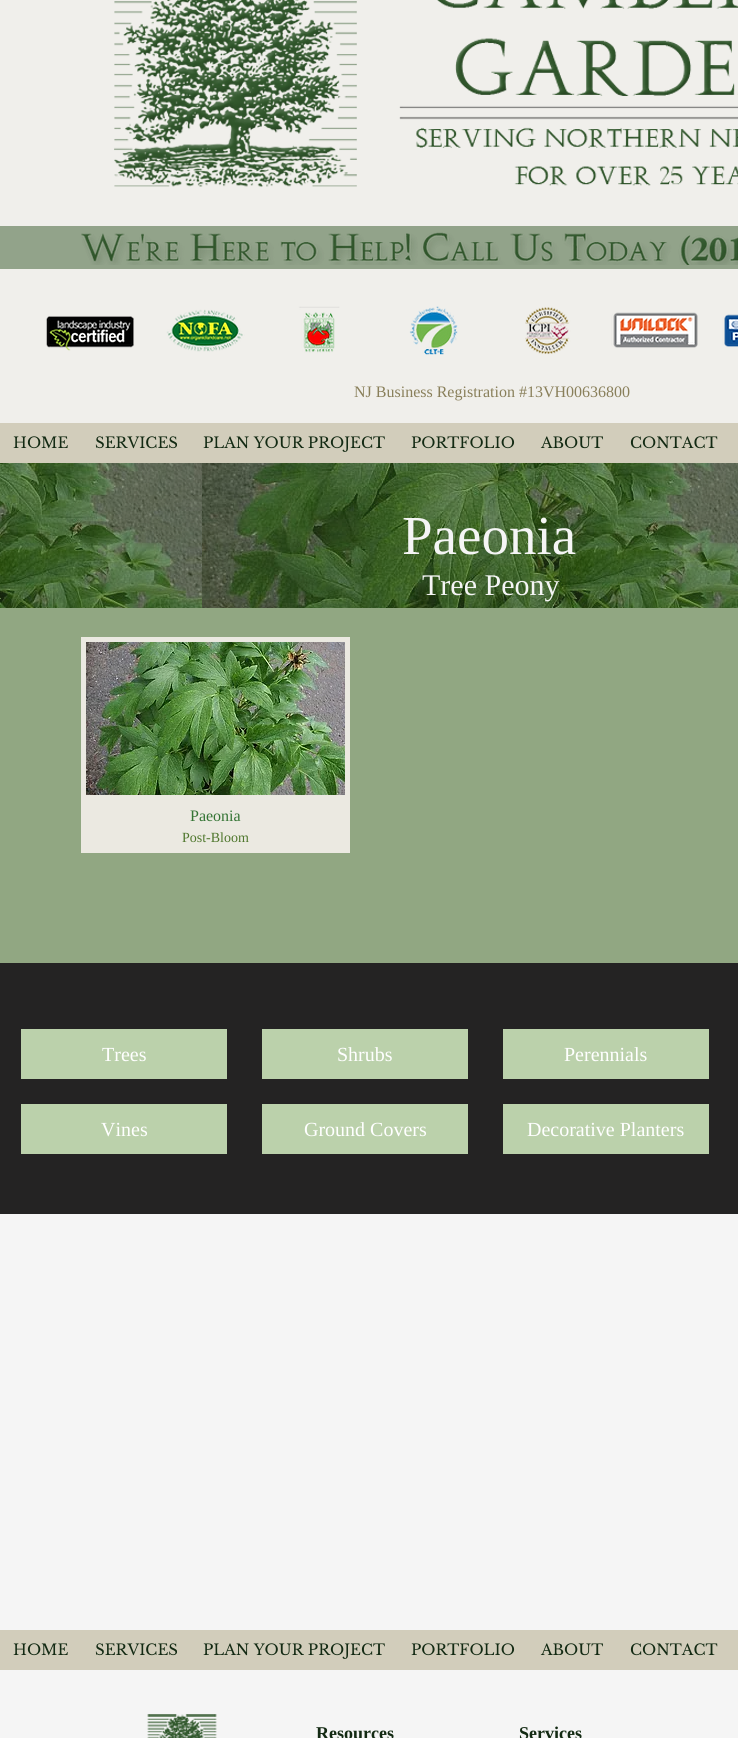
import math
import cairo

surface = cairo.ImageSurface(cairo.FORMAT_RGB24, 738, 1738)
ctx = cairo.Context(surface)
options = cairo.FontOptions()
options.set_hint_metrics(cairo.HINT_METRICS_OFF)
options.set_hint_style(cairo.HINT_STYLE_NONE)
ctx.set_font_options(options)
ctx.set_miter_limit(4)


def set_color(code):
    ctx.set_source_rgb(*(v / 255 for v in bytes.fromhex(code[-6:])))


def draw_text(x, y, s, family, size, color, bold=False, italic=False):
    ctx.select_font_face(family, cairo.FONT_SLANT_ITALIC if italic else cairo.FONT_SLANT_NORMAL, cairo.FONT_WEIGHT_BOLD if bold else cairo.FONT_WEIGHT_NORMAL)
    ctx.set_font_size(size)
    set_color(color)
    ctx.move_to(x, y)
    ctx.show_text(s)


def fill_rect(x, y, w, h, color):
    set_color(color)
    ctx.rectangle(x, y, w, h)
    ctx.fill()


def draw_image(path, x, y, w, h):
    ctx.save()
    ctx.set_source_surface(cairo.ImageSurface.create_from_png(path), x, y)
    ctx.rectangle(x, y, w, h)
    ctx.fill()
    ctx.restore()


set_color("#f5f5f5")
ctx.paint()
fill_rect(0, 0, 738, 423, "#f0efeb")
fill_rect(0, 226, 738, 43, "#92a38a")
draw_image("assets/img1.png", 114, 0, 624, 187)
draw_image("assets/img2.png", 81, 232, 657, 33)
draw_image("assets/img3.png", 46, 306, 692, 49)
draw_text(354, 397, "NJ Business Registration #13VH00636800", "Liberation Serif", 16, "#897f5a")
fill_rect(0, 423, 738, 40, "#d2cdbb")
draw_text(13, 448, "HOME", "Libre Baskerville", 15, "#132a13")
draw_text(95, 448, "SERVICES", "Libre Baskerville", 15, "#132a13")
draw_text(203, 448, "PLAN YOUR PROJECT", "Libre Baskerville", 15, "#132a13")
draw_text(411, 448, "PORTFOLIO", "Libre Baskerville", 15, "#132a13")
draw_text(541, 448, "ABOUT", "Libre Baskerville", 15, "#132a13")
draw_text(630, 448, "CONTACT", "Libre Baskerville", 15, "#132a13")
fill_rect(0, 463, 738, 145, "#2b4118")
draw_image("assets/img4.png", 0, 463, 738, 145)
draw_text(402, 554, "Paeonia", "Liberation Serif", 55, "#f5f5f5")
draw_text(422, 595, "Tree Peony", "Liberation Serif", 30, "#f5f5f5")
fill_rect(0, 608, 738, 355, "#91a782")
fill_rect(81, 637, 269, 216, "#ebe9e1")
draw_image("assets/img5.png", 86, 642, 259, 153)
draw_text(190, 821, "Paeonia", "Liberation Serif", 16, "#347434")
draw_text(182, 842, "Post-Bloom", "Liberation Serif", 14, "#4f772d")
fill_rect(0, 963, 738, 251, "#242323")
fill_rect(21, 1029, 206, 50, "#bbd1ab")
draw_text(102, 1061, "Trees", "Liberation Serif", 20, "#ffffff")
fill_rect(21, 1104, 206, 50, "#bbd1ab")
draw_text(101, 1136, "Vines", "Liberation Serif", 20, "#ffffff")
fill_rect(262, 1029, 206, 50, "#bbd1ab")
draw_text(337, 1061, "Shrubs", "Liberation Serif", 20, "#ffffff")
fill_rect(262, 1104, 206, 50, "#bbd1ab")
draw_text(304, 1136, "Ground Covers", "Liberation Serif", 20, "#ffffff")
fill_rect(503, 1029, 206, 50, "#bbd1ab")
draw_text(564, 1061, "Perennials", "Liberation Serif", 20, "#ffffff")
fill_rect(503, 1104, 206, 50, "#bbd1ab")
draw_text(527, 1136, "Decorative Planters", "Liberation Serif", 20, "#ffffff")
fill_rect(0, 1630, 738, 40, "#d2cdbb")
draw_text(13, 1655, "HOME", "Libre Baskerville", 15, "#132a13")
draw_text(95, 1655, "SERVICES", "Libre Baskerville", 15, "#132a13")
draw_text(203, 1655, "PLAN YOUR PROJECT", "Libre Baskerville", 15, "#132a13")
draw_text(411, 1655, "PORTFOLIO", "Libre Baskerville", 15, "#132a13")
draw_text(541, 1655, "ABOUT", "Libre Baskerville", 15, "#132a13")
draw_text(630, 1655, "CONTACT", "Libre Baskerville", 15, "#132a13")
draw_image("assets/img6.png", 147, 1714, 70, 24)
draw_text(316, 1739, "Resources", "Liberation Serif", 18, "#132a13", bold=True)
draw_text(519, 1739, "Services", "Liberation Serif", 18, "#132a13", bold=True)
surface.write_to_png("output.png")
